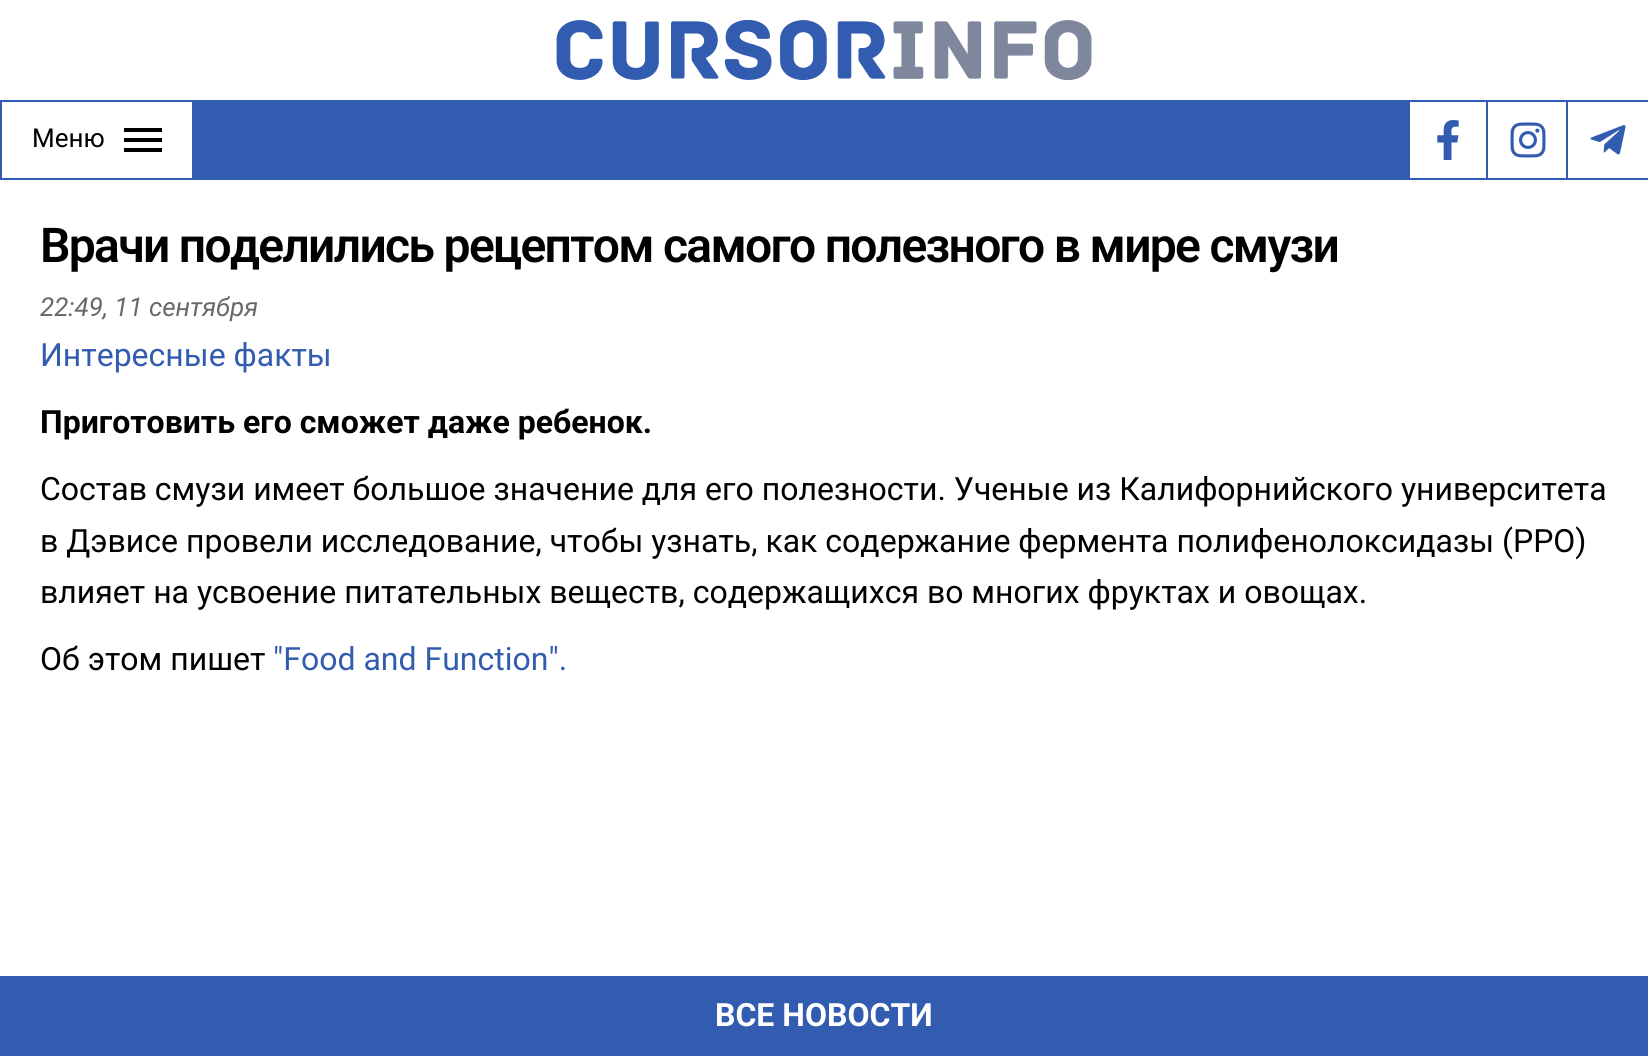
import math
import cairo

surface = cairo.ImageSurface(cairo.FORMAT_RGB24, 1648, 1056)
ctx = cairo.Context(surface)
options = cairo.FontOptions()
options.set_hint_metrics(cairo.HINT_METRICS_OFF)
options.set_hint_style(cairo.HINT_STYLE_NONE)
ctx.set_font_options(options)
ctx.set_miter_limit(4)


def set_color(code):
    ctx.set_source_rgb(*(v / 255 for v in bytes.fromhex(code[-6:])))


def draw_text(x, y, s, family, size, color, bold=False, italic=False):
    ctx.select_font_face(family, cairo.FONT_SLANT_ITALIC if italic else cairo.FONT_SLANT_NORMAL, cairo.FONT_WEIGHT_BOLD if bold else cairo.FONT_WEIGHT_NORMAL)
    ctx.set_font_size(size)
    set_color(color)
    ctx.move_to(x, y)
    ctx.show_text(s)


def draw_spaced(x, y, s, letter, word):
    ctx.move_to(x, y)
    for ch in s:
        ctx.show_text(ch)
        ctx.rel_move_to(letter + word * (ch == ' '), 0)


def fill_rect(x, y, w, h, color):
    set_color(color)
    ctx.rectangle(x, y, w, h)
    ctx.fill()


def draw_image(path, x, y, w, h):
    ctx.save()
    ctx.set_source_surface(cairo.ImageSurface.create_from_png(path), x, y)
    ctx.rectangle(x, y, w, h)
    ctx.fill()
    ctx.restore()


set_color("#ffffff")
ctx.paint()
draw_image("assets/img1.png", 556, 20, 536, 60)
fill_rect(194, 100, 1454, 80, "#325caf")
ctx.rectangle(1, 101, 192, 78)
ctx.stroke()
draw_text(32, 147, "Меню", "Roboto", 26, "#000000")
fill_rect(124, 128, 38, 4, "#000000")
fill_rect(124, 138, 38, 4, "#000000")
fill_rect(124, 148, 38, 4, "#000000")
fill_rect(1410, 102, 76, 76, "#ffffff")
draw_image("assets/img2.png", 1437, 120, 22, 40)
fill_rect(1488, 102, 78, 76, "#ffffff")
draw_image("assets/img3.png", 1510, 122, 36, 36)
fill_rect(1568, 102, 80, 76, "#ffffff")
draw_image("assets/img4.png", 1590, 125, 36, 30)
ctx.select_font_face("Roboto SemiBold")
ctx.set_font_size(48)
set_color("#000000")
draw_spaced(40, 262, "Врачи поделились рецептом самого полезного в мире смузи", -1.68, 0)
draw_text(40, 316, "22:49, 11 сентября", "Roboto", 26, "#696969", italic=True)
draw_text(40, 366, "Интересные факты", "Roboto", 32, "#325caf")
draw_text(40, 433, "Приготовить его сможет даже ребенок.", "Roboto", 32, "#000000", bold=True)
draw_text(40, 500, "Состав смузи имеет большое значение для его полезности. Ученые из Калифорнийского университета", "Roboto", 32, "#000000")
draw_text(40, 552, "в Дэвисе провели исследование, чтобы узнать, как содержание фермента полифенолоксидазы (РРО)", "Roboto", 32, "#000000")
draw_text(40, 603, "влияет на усвоение питательных веществ, содержащихся во многих фруктах и овощах.", "Roboto", 32, "#000000")
draw_text(40, 670, "Об этом пишет", "Roboto", 32, "#000000")
draw_text(273, 670, "\"Food and Function\".", "Roboto", 32, "#325caf")
fill_rect(0, 976, 1648, 80, "#325caf")
draw_text(715, 1026, "ВСЕ НОВОСТИ", "Roboto", 32, "#ffffff", bold=True)
surface.write_to_png("output.png")
